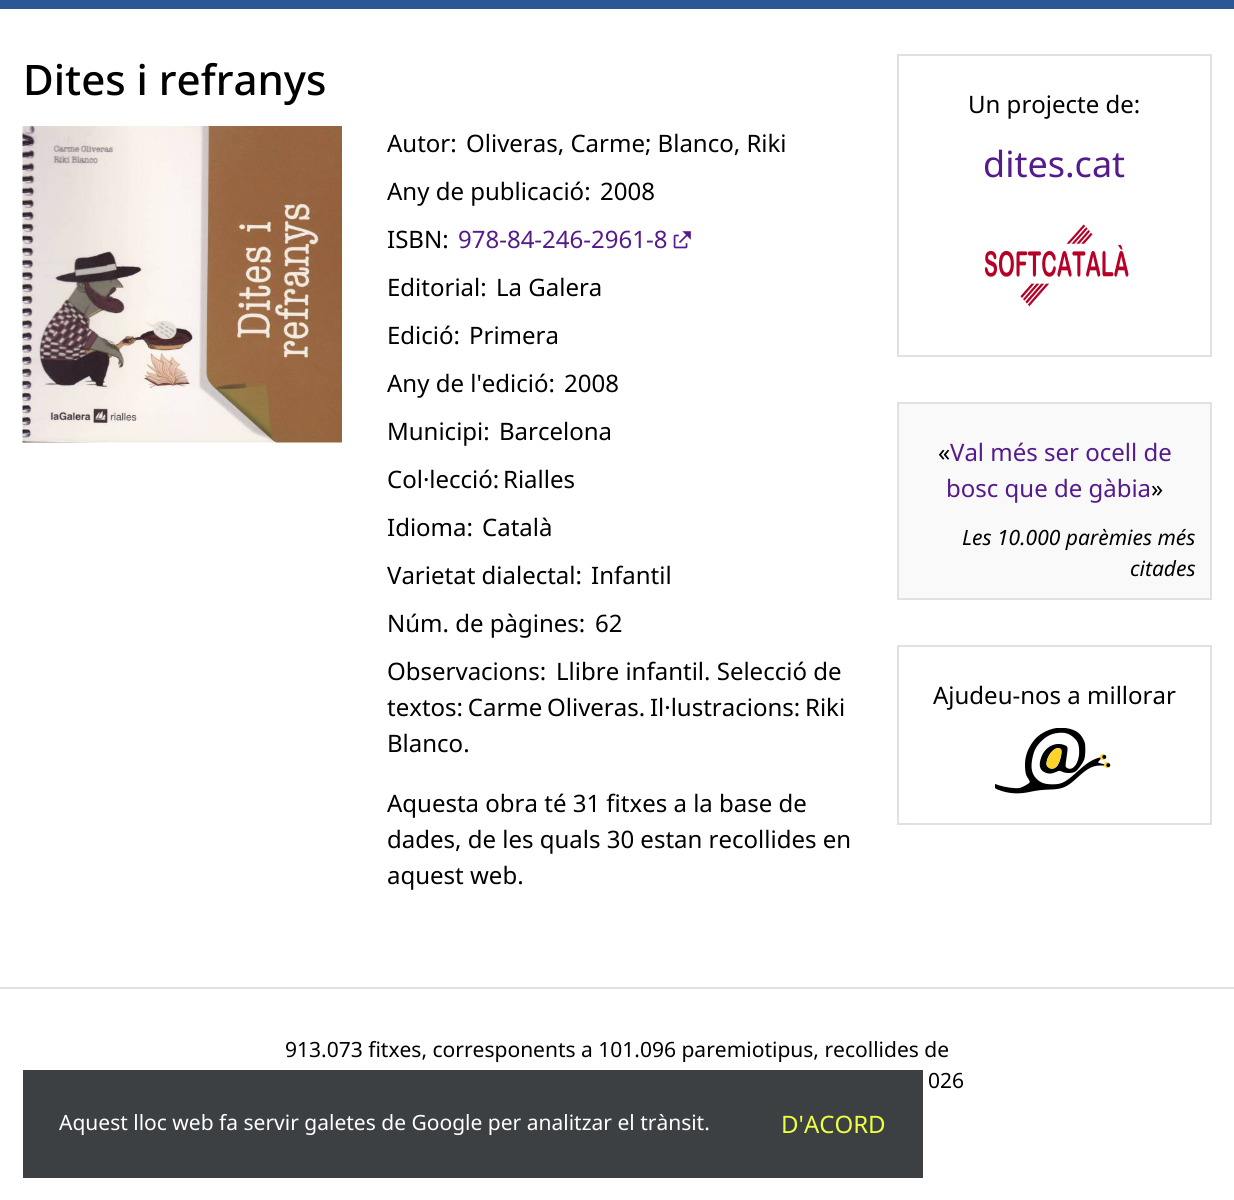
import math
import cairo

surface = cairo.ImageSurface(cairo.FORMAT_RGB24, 1234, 1200)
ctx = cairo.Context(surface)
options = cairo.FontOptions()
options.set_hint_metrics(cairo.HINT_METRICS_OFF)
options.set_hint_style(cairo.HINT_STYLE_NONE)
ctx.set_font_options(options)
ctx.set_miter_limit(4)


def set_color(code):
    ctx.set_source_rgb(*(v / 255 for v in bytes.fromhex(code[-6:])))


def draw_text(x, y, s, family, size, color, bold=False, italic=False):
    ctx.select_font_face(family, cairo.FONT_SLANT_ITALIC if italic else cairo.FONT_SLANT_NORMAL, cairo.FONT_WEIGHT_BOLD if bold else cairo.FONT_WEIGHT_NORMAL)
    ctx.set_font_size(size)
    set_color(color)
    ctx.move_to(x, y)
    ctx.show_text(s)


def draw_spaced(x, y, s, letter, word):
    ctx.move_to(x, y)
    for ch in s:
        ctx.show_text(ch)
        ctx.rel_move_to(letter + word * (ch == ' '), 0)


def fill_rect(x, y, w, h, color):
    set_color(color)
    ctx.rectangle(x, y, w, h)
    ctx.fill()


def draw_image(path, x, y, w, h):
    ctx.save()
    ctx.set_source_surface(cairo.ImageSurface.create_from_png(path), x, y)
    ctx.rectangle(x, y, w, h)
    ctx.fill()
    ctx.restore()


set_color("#ffffff")
ctx.paint()
fill_rect(0, 0, 1234, 9, "#2b5797")
draw_text(23, 95, "Dites i refranys", "Noto Sans Medium", 42, "#000000")
draw_image("assets/img1.png", 22, 126, 320, 317)
draw_text(387, 152, "Autor:", "Noto Sans", 24, "#000000")
draw_text(466, 152, "Oliveras, Carme; Blanco, Riki", "Noto Sans", 24, "#000000")
draw_text(387, 200, "Any de publicació:", "Noto Sans", 24, "#000000")
draw_text(600, 200, "2008", "Noto Sans", 24, "#000000")
draw_text(387, 248, "ISBN:", "Noto Sans", 24, "#000000")
draw_text(458, 248, "978-84-246-2961-8", "Noto Sans", 24, "#551a8b")
draw_image("assets/img2.png", 673, 231, 18, 18)
draw_text(387, 296, "Editorial:", "Noto Sans", 24, "#000000")
draw_text(496, 296, "La Galera", "Noto Sans", 24, "#000000")
draw_text(387, 344, "Edició:", "Noto Sans", 24, "#000000")
draw_text(469, 344, "Primera", "Noto Sans", 24, "#000000")
draw_text(387, 392, "Any de l'edició:", "Noto Sans", 24, "#000000")
draw_text(564, 392, "2008", "Noto Sans", 24, "#000000")
draw_text(387, 440, "Municipi:", "Noto Sans", 24, "#000000")
draw_text(499, 440, "Barcelona", "Noto Sans", 24, "#000000")
draw_text(387, 488, "Col·lecció:", "Noto Sans", 24, "#000000")
draw_text(503, 488, "Rialles", "Noto Sans", 24, "#000000")
draw_text(387, 536, "Idioma:", "Noto Sans", 24, "#000000")
draw_text(482, 536, "Català", "Noto Sans", 24, "#000000")
draw_text(387, 584, "Varietat dialectal:", "Noto Sans", 24, "#000000")
draw_text(591, 584, "Infantil", "Noto Sans", 24, "#000000")
draw_text(387, 632, "Núm. de pàgines:", "Noto Sans", 24, "#000000")
draw_text(595, 632, "62", "Noto Sans", 24, "#000000")
draw_text(387, 680, "Observacions:", "Noto Sans", 24, "#000000")
draw_text(556, 680, "Llibre infantil. Selecció de", "Noto Sans", 24, "#000000")
draw_spaced(387, 716, "textos: Carme Oliveras. Il·lustracions: Riki", 0, -1.5)
draw_text(387, 752, "Blanco.", "Noto Sans", 24, "#000000")
draw_text(387, 812, "Aquesta obra té 31 fitxes a la base de", "Noto Sans", 24, "#000000")
draw_text(387, 848, "dades, de les quals 30 estan recollides en", "Noto Sans", 24, "#000000")
draw_text(387, 884, "aquest web.", "Noto Sans", 24, "#000000")
ctx.rectangle(898, 55, 313, 301)
set_color("#dee2e6")
ctx.stroke()
draw_text(968, 113, "Un projecte de:", "Noto Sans", 24, "#000000")
draw_text(983, 177, "dites.cat", "Noto Sans", 36, "#551a8b")
draw_image("assets/img3.png", 984, 224, 145, 83)
set_color("#f9f9f9")
ctx.rectangle(898, 403, 313, 196)
ctx.fill_preserve()
set_color("#dee2e6")
ctx.stroke()
draw_text(938, 461, "«", "Noto Sans", 24, "#000000")
draw_text(950, 461, "Val més ser ocell de", "Noto Sans", 24, "#551a8b")
draw_text(946, 497, "bosc que de gàbia", "Noto Sans", 24, "#551a8b")
draw_text(1151, 497, "»", "Noto Sans", 24, "#000000")
draw_text(962, 545, "Les 10.000 parèmies més", "Noto Sans", 21, "#000000", italic=True)
draw_text(1130, 576, "citades", "Noto Sans", 21, "#000000", italic=True)
ctx.rectangle(898, 646, 313, 178)
set_color("#dee2e6")
ctx.stroke()
draw_text(933, 704, "Ajudeu-nos a millorar", "Noto Sans", 24, "#000000")
draw_image("assets/img4.png", 995, 728, 116, 66)
fill_rect(0, 987, 1234, 2, "#dee2e6")
draw_text(285, 1057, "913.073 fitxes, corresponents a 101.096 paremiotipus, recollides de", "Noto Sans", 21, "#000000")
draw_text(928, 1088, "026", "Noto Sans", 21, "#000000")
fill_rect(23, 1070, 900, 108, "#3c4043")
draw_text(59, 1130, "Aquest lloc web fa servir galetes de Google per analitzar el trànsit.", "Noto Sans", 21, "#ffffff")
draw_text(781, 1133, "D'ACORD", "Noto Sans", 24, "#eeff41")
surface.write_to_png("output.png")
